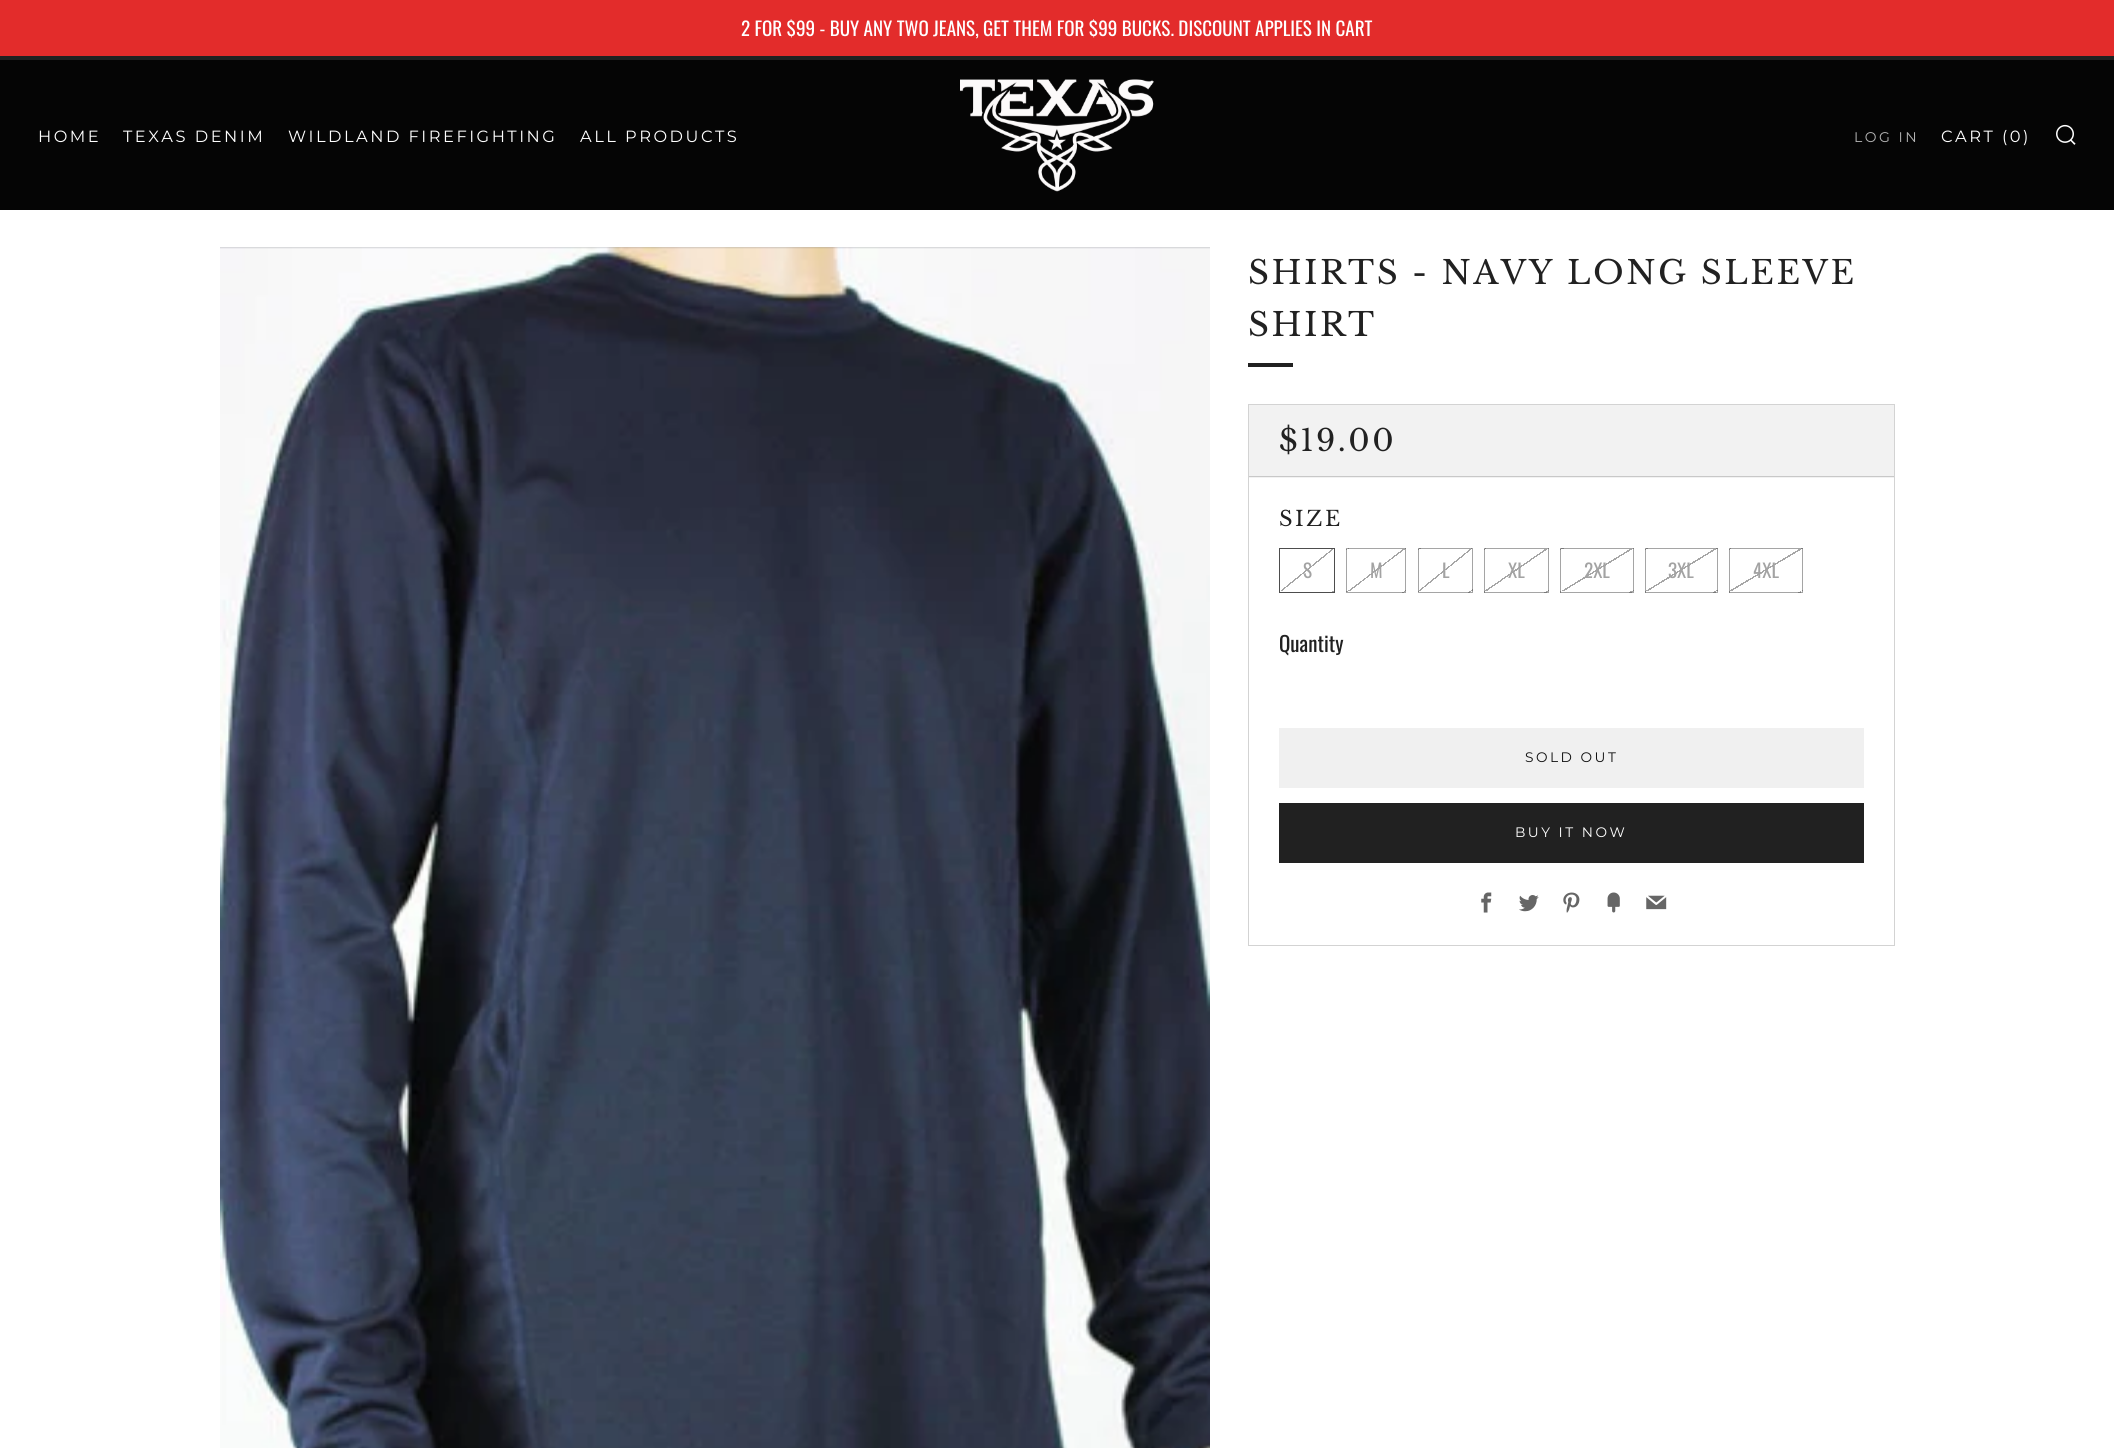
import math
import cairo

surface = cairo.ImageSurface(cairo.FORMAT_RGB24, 2114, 1448)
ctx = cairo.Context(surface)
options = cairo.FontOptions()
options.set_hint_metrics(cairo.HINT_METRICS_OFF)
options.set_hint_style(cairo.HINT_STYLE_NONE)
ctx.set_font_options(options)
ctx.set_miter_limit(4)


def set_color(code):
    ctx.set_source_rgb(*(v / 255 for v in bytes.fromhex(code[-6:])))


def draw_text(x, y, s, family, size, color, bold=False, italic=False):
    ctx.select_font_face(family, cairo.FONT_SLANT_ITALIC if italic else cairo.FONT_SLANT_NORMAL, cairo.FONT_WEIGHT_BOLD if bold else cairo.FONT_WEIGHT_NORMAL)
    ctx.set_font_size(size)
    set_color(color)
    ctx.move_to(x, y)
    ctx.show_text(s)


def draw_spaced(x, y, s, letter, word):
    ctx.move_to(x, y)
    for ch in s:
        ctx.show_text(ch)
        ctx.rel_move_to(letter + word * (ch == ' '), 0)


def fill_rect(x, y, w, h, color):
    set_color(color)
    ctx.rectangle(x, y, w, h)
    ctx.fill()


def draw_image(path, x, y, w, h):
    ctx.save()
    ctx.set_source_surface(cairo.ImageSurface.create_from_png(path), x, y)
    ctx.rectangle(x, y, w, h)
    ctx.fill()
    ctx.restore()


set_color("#ffffff")
ctx.paint()
fill_rect(0, 0, 2114, 56, "#e32c2b")
draw_text(741, 36, "2 FOR $99 - BUY ANY TWO JEANS, GET THEM FOR $99 BUCKS. DISCOUNT APPLIES IN CART", "Oswald", 19.1, "#ffffff")
fill_rect(0, 56, 2114, 4, "#212121")
fill_rect(0, 60, 2114, 150, "#050505")
draw_image("assets/img1.png", 960, 79, 194, 113)
ctx.select_font_face("Montserrat")
ctx.set_font_size(16.25)
set_color("#ffffff")
draw_spaced(38, 142, "HOME", 2.5, 0)
draw_spaced(123, 142, "TEXAS DENIM", 2.5, 0)
draw_spaced(288, 142, "WILDLAND FIREFIGHTING", 2.5, 0)
draw_spaced(580, 142, "ALL PRODUCTS", 2.5, 0)
ctx.set_font_size(14)
set_color("#b4b4b4")
draw_spaced(1854, 142, "LOG IN", 2.5, 0)
ctx.set_font_size(16.25)
set_color("#ffffff")
draw_spaced(1941, 142, "CART (0)", 2.5, 0)
draw_image("assets/img2.png", 2056, 124, 20, 21)
draw_image("assets/img3.png", 220, 247, 990, 2)
draw_image("assets/img4.png", 220, 247, 990, 1201)
ctx.select_font_face("Libre Baskerville")
ctx.set_font_size(32.5)
set_color("#212121")
draw_spaced(1248, 284, "SHIRTS - NAVY LONG SLEEVE", 2.5, 0)
draw_spaced(1248, 336, "SHIRT", 2.5, 0)
fill_rect(1248, 363, 45, 4, "#212121")
ctx.rectangle(1248.5, 404.5, 646, 541)
set_color("#d3d3d3")
ctx.set_line_width(1)
ctx.stroke()
fill_rect(1249, 405, 645, 73, "#f2f2f2")
fill_rect(1249, 476, 645, 1, "#c8c8c8")
ctx.set_font_size(30)
set_color("#212121")
draw_spaced(1279, 451, "$19.00", 2.5, 0)
ctx.set_font_size(21)
draw_spaced(1279, 526, "SIZE", 2.5, 0)
gradient = cairo.LinearGradient(1328, 596, 1286, 544)
gradient.add_color_stop_rgba(0.49, 1, 1, 1, 1)
gradient.add_color_stop_rgba(0.49, 0.651, 0.651, 0.651, 1)
gradient.add_color_stop_rgba(0.51, 0.651, 0.651, 0.651, 1)
gradient.add_color_stop_rgba(0.51, 1, 1, 1, 1)
ctx.set_source(gradient)
ctx.rectangle(1281, 549, 52, 42)
ctx.fill()
gradient = cairo.LinearGradient(1328, 639, 1286, 586)
gradient.add_color_stop_rgba(0.49, 1, 1, 1, 1)
gradient.add_color_stop_rgba(0.49, 0.651, 0.651, 0.651, 1)
gradient.add_color_stop_rgba(0.51, 0.651, 0.651, 0.651, 1)
gradient.add_color_stop_rgba(0.51, 1, 1, 1, 1)
ctx.set_source(gradient)
ctx.rectangle(1332, 591, 2, 1)
ctx.fill()
ctx.rectangle(1279.5, 548.5, 55, 44)
set_color("#4d4d4d")
ctx.stroke()
draw_text(1303, 578, "S", "Oswald", 19.1, "#a3a3a3")
gradient = cairo.LinearGradient(1397, 555, 1356, 500)
gradient.add_color_stop_rgba(0.49, 1, 1, 1, 1)
gradient.add_color_stop_rgba(0.49, 0.651, 0.651, 0.651, 1)
gradient.add_color_stop_rgba(0.51, 0.651, 0.651, 0.651, 1)
gradient.add_color_stop_rgba(0.51, 1, 1, 1, 1)
ctx.set_source(gradient)
ctx.rectangle(1348, 548, 1, 1)
ctx.fill()
gradient = cairo.LinearGradient(1454, 555, 1413, 500)
gradient.add_color_stop_rgba(0.49, 1, 1, 1, 1)
gradient.add_color_stop_rgba(0.49, 0.651, 0.651, 0.651, 1)
gradient.add_color_stop_rgba(0.51, 0.651, 0.651, 0.651, 1)
gradient.add_color_stop_rgba(0.51, 1, 1, 1, 1)
ctx.set_source(gradient)
ctx.rectangle(1405, 548, 1, 1)
ctx.fill()
gradient = cairo.LinearGradient(1339, 597, 1298, 543)
gradient.add_color_stop_rgba(0.49, 1, 1, 1, 1)
gradient.add_color_stop_rgba(0.49, 0.651, 0.651, 0.651, 1)
gradient.add_color_stop_rgba(0.51, 0.651, 0.651, 0.651, 1)
gradient.add_color_stop_rgba(0.51, 1, 1, 1, 1)
ctx.set_source(gradient)
ctx.rectangle(1346, 549, 1, 1)
ctx.fill()
gradient = cairo.LinearGradient(1397, 597, 1356, 543)
gradient.add_color_stop_rgba(0.49, 1, 1, 1, 1)
gradient.add_color_stop_rgba(0.49, 0.651, 0.651, 0.651, 1)
gradient.add_color_stop_rgba(0.51, 0.651, 0.651, 0.651, 1)
gradient.add_color_stop_rgba(0.51, 1, 1, 1, 1)
ctx.set_source(gradient)
ctx.rectangle(1348, 549, 57, 42)
ctx.fill()
gradient = cairo.LinearGradient(1454, 597, 1413, 543)
gradient.add_color_stop_rgba(0.49, 1, 1, 1, 1)
gradient.add_color_stop_rgba(0.49, 0.651, 0.651, 0.651, 1)
gradient.add_color_stop_rgba(0.51, 0.651, 0.651, 0.651, 1)
gradient.add_color_stop_rgba(0.51, 1, 1, 1, 1)
ctx.set_source(gradient)
ctx.rectangle(1405, 590, 1, 1)
ctx.fill()
gradient = cairo.LinearGradient(1339, 640, 1298, 585)
gradient.add_color_stop_rgba(0.49, 1, 1, 1, 1)
gradient.add_color_stop_rgba(0.49, 0.651, 0.651, 0.651, 1)
gradient.add_color_stop_rgba(0.51, 0.651, 0.651, 0.651, 1)
gradient.add_color_stop_rgba(0.51, 1, 1, 1, 1)
ctx.set_source(gradient)
ctx.rectangle(1346, 591, 2, 1)
ctx.fill()
gradient = cairo.LinearGradient(1397, 640, 1356, 585)
gradient.add_color_stop_rgba(0.49, 1, 1, 1, 1)
gradient.add_color_stop_rgba(0.49, 0.651, 0.651, 0.651, 1)
gradient.add_color_stop_rgba(0.51, 0.651, 0.651, 0.651, 1)
gradient.add_color_stop_rgba(0.51, 1, 1, 1, 1)
ctx.set_source(gradient)
ctx.rectangle(1402, 591, 3, 2)
ctx.fill()
ctx.rectangle(1346.5, 548.5, 59, 44)
ctx.set_source_rgba(0.302, 0.302, 0.302, 0.5)
ctx.stroke()
draw_text(1370, 578, "M", "Oswald", 19.1, "#a3a3a3")
gradient = cairo.LinearGradient(1466, 553, 1424, 502)
gradient.add_color_stop_rgba(0.49, 1, 1, 1, 1)
gradient.add_color_stop_rgba(0.49, 0.651, 0.651, 0.651, 1)
gradient.add_color_stop_rgba(0.51, 0.651, 0.651, 0.651, 1)
gradient.add_color_stop_rgba(0.51, 1, 1, 1, 1)
ctx.set_source(gradient)
ctx.rectangle(1419, 548, 2, 1)
ctx.fill()
gradient = cairo.LinearGradient(1518, 553, 1477, 502)
gradient.add_color_stop_rgba(0.49, 1, 1, 1, 1)
gradient.add_color_stop_rgba(0.49, 0.651, 0.651, 0.651, 1)
gradient.add_color_stop_rgba(0.51, 0.651, 0.651, 0.651, 1)
gradient.add_color_stop_rgba(0.51, 1, 1, 1, 1)
ctx.set_source(gradient)
ctx.rectangle(1471, 548, 2, 1)
ctx.fill()
gradient = cairo.LinearGradient(1413, 596, 1372, 544)
gradient.add_color_stop_rgba(0.49, 1, 1, 1, 1)
gradient.add_color_stop_rgba(0.49, 0.651, 0.651, 0.651, 1)
gradient.add_color_stop_rgba(0.51, 0.651, 0.651, 0.651, 1)
gradient.add_color_stop_rgba(0.51, 1, 1, 1, 1)
ctx.set_source(gradient)
ctx.rectangle(1418, 549, 1, 1)
ctx.fill()
gradient = cairo.LinearGradient(1466, 596, 1424, 544)
gradient.add_color_stop_rgba(0.49, 1, 1, 1, 1)
gradient.add_color_stop_rgba(0.49, 0.651, 0.651, 0.651, 1)
gradient.add_color_stop_rgba(0.51, 0.651, 0.651, 0.651, 1)
gradient.add_color_stop_rgba(0.51, 1, 1, 1, 1)
ctx.set_source(gradient)
ctx.rectangle(1419, 549, 52, 42)
ctx.fill()
gradient = cairo.LinearGradient(1518, 596, 1477, 544)
gradient.add_color_stop_rgba(0.49, 1, 1, 1, 1)
gradient.add_color_stop_rgba(0.49, 0.651, 0.651, 0.651, 1)
gradient.add_color_stop_rgba(0.51, 0.651, 0.651, 0.651, 1)
gradient.add_color_stop_rgba(0.51, 1, 1, 1, 1)
ctx.set_source(gradient)
ctx.rectangle(1471, 589, 2, 2)
ctx.fill()
gradient = cairo.LinearGradient(1413, 638, 1372, 587)
gradient.add_color_stop_rgba(0.49, 1, 1, 1, 1)
gradient.add_color_stop_rgba(0.49, 0.651, 0.651, 0.651, 1)
gradient.add_color_stop_rgba(0.51, 0.651, 0.651, 0.651, 1)
gradient.add_color_stop_rgba(0.51, 1, 1, 1, 1)
ctx.set_source(gradient)
ctx.rectangle(1418, 591, 1, 2)
ctx.fill()
gradient = cairo.LinearGradient(1466, 638, 1424, 587)
gradient.add_color_stop_rgba(0.49, 1, 1, 1, 1)
gradient.add_color_stop_rgba(0.49, 0.651, 0.651, 0.651, 1)
gradient.add_color_stop_rgba(0.51, 0.651, 0.651, 0.651, 1)
gradient.add_color_stop_rgba(0.51, 1, 1, 1, 1)
ctx.set_source(gradient)
ctx.rectangle(1468, 591, 3, 2)
ctx.fill()
ctx.rectangle(1418.5, 548.5, 54, 44)
ctx.set_source_rgba(0.302, 0.302, 0.302, 0.5)
ctx.stroke()
draw_text(1442, 578, "L", "Oswald", 19.1, "#a3a3a3")
gradient = cairo.LinearGradient(1536, 557, 1496, 498)
gradient.add_color_stop_rgba(0.49, 1, 1, 1, 1)
gradient.add_color_stop_rgba(0.49, 0.651, 0.651, 0.651, 1)
gradient.add_color_stop_rgba(0.51, 0.651, 0.651, 0.651, 1)
gradient.add_color_stop_rgba(0.51, 1, 1, 1, 1)
ctx.set_source(gradient)
ctx.rectangle(1485, 548, 1, 1)
ctx.fill()
gradient = cairo.LinearGradient(1599, 557, 1559, 498)
gradient.add_color_stop_rgba(0.49, 1, 1, 1, 1)
gradient.add_color_stop_rgba(0.49, 0.651, 0.651, 0.651, 1)
gradient.add_color_stop_rgba(0.51, 0.651, 0.651, 0.651, 1)
gradient.add_color_stop_rgba(0.51, 1, 1, 1, 1)
ctx.set_source(gradient)
ctx.rectangle(1548, 548, 1, 1)
ctx.fill()
gradient = cairo.LinearGradient(1474, 599, 1434, 541)
gradient.add_color_stop_rgba(0.49, 1, 1, 1, 1)
gradient.add_color_stop_rgba(0.49, 0.651, 0.651, 0.651, 1)
gradient.add_color_stop_rgba(0.51, 0.651, 0.651, 0.651, 1)
gradient.add_color_stop_rgba(0.51, 1, 1, 1, 1)
ctx.set_source(gradient)
ctx.rectangle(1484, 549, 1, 1)
ctx.fill()
gradient = cairo.LinearGradient(1536, 599, 1496, 541)
gradient.add_color_stop_rgba(0.49, 1, 1, 1, 1)
gradient.add_color_stop_rgba(0.49, 0.651, 0.651, 0.651, 1)
gradient.add_color_stop_rgba(0.51, 0.651, 0.651, 0.651, 1)
gradient.add_color_stop_rgba(0.51, 1, 1, 1, 1)
ctx.set_source(gradient)
ctx.rectangle(1485, 549, 62, 42)
ctx.fill()
gradient = cairo.LinearGradient(1599, 599, 1559, 541)
gradient.add_color_stop_rgba(0.49, 1, 1, 1, 1)
gradient.add_color_stop_rgba(0.49, 0.651, 0.651, 0.651, 1)
gradient.add_color_stop_rgba(0.51, 0.651, 0.651, 0.651, 1)
gradient.add_color_stop_rgba(0.51, 1, 1, 1, 1)
ctx.set_source(gradient)
ctx.rectangle(1548, 590, 1, 1)
ctx.fill()
gradient = cairo.LinearGradient(1474, 642, 1434, 583)
gradient.add_color_stop_rgba(0.49, 1, 1, 1, 1)
gradient.add_color_stop_rgba(0.49, 0.651, 0.651, 0.651, 1)
gradient.add_color_stop_rgba(0.51, 0.651, 0.651, 0.651, 1)
gradient.add_color_stop_rgba(0.51, 1, 1, 1, 1)
ctx.set_source(gradient)
ctx.rectangle(1484, 591, 1, 2)
ctx.fill()
gradient = cairo.LinearGradient(1536, 642, 1496, 583)
gradient.add_color_stop_rgba(0.49, 1, 1, 1, 1)
gradient.add_color_stop_rgba(0.49, 0.651, 0.651, 0.651, 1)
gradient.add_color_stop_rgba(0.51, 0.651, 0.651, 0.651, 1)
gradient.add_color_stop_rgba(0.51, 1, 1, 1, 1)
ctx.set_source(gradient)
ctx.rectangle(1544, 591, 4, 2)
ctx.fill()
ctx.rectangle(1484.5, 548.5, 64, 44)
ctx.set_source_rgba(0.302, 0.302, 0.302, 0.5)
ctx.stroke()
draw_text(1508, 578, "XL", "Oswald", 19.1, "#a3a3a3")
gradient = cairo.LinearGradient(1616, 559, 1578, 496)
gradient.add_color_stop_rgba(0.49, 1, 1, 1, 1)
gradient.add_color_stop_rgba(0.49, 0.651, 0.651, 0.651, 1)
gradient.add_color_stop_rgba(0.51, 0.651, 0.651, 0.651, 1)
gradient.add_color_stop_rgba(0.51, 1, 1, 1, 1)
ctx.set_source(gradient)
ctx.rectangle(1561, 548, 3, 1)
ctx.fill()
gradient = cairo.LinearGradient(1687, 559, 1649, 496)
gradient.add_color_stop_rgba(0.49, 1, 1, 1, 1)
gradient.add_color_stop_rgba(0.49, 0.651, 0.651, 0.651, 1)
gradient.add_color_stop_rgba(0.51, 0.651, 0.651, 0.651, 1)
gradient.add_color_stop_rgba(0.51, 1, 1, 1, 1)
ctx.set_source(gradient)
ctx.rectangle(1633, 548, 1, 1)
ctx.fill()
gradient = cairo.LinearGradient(1544, 601, 1507, 539)
gradient.add_color_stop_rgba(0.49, 1, 1, 1, 1)
gradient.add_color_stop_rgba(0.49, 0.651, 0.651, 0.651, 1)
gradient.add_color_stop_rgba(0.51, 0.651, 0.651, 0.651, 1)
gradient.add_color_stop_rgba(0.51, 1, 1, 1, 1)
ctx.set_source(gradient)
ctx.rectangle(1560, 549, 1, 1)
ctx.fill()
gradient = cairo.LinearGradient(1616, 601, 1578, 539)
gradient.add_color_stop_rgba(0.49, 1, 1, 1, 1)
gradient.add_color_stop_rgba(0.49, 0.651, 0.651, 0.651, 1)
gradient.add_color_stop_rgba(0.51, 0.651, 0.651, 0.651, 1)
gradient.add_color_stop_rgba(0.51, 1, 1, 1, 1)
ctx.set_source(gradient)
ctx.rectangle(1562, 549, 70, 42)
ctx.fill()
gradient = cairo.LinearGradient(1687, 601, 1649, 539)
gradient.add_color_stop_rgba(0.49, 1, 1, 1, 1)
gradient.add_color_stop_rgba(0.49, 0.651, 0.651, 0.651, 1)
gradient.add_color_stop_rgba(0.51, 0.651, 0.651, 0.651, 1)
gradient.add_color_stop_rgba(0.51, 1, 1, 1, 1)
ctx.set_source(gradient)
ctx.rectangle(1633, 590, 1, 1)
ctx.fill()
gradient = cairo.LinearGradient(1544, 644, 1507, 581)
gradient.add_color_stop_rgba(0.49, 1, 1, 1, 1)
gradient.add_color_stop_rgba(0.49, 0.651, 0.651, 0.651, 1)
gradient.add_color_stop_rgba(0.51, 0.651, 0.651, 0.651, 1)
gradient.add_color_stop_rgba(0.51, 1, 1, 1, 1)
ctx.set_source(gradient)
ctx.rectangle(1560, 591, 1, 2)
ctx.fill()
gradient = cairo.LinearGradient(1616, 644, 1578, 581)
gradient.add_color_stop_rgba(0.49, 1, 1, 1, 1)
gradient.add_color_stop_rgba(0.49, 0.651, 0.651, 0.651, 1)
gradient.add_color_stop_rgba(0.51, 0.651, 0.651, 0.651, 1)
gradient.add_color_stop_rgba(0.51, 1, 1, 1, 1)
ctx.set_source(gradient)
ctx.rectangle(1629, 591, 4, 2)
ctx.fill()
ctx.rectangle(1560.5, 548.5, 73, 44)
ctx.set_source_rgba(0.302, 0.302, 0.302, 0.5)
ctx.stroke()
draw_text(1584, 578, "2XL", "Oswald", 19.1, "#a3a3a3")
gradient = cairo.LinearGradient(1700, 559, 1662, 496)
gradient.add_color_stop_rgba(0.49, 1, 1, 1, 1)
gradient.add_color_stop_rgba(0.49, 0.651, 0.651, 0.651, 1)
gradient.add_color_stop_rgba(0.51, 0.651, 0.651, 0.651, 1)
gradient.add_color_stop_rgba(0.51, 1, 1, 1, 1)
ctx.set_source(gradient)
ctx.rectangle(1646, 548, 2, 1)
ctx.fill()
gradient = cairo.LinearGradient(1770, 559, 1732, 496)
gradient.add_color_stop_rgba(0.49, 1, 1, 1, 1)
gradient.add_color_stop_rgba(0.49, 0.651, 0.651, 0.651, 1)
gradient.add_color_stop_rgba(0.51, 0.651, 0.651, 0.651, 1)
gradient.add_color_stop_rgba(0.51, 1, 1, 1, 1)
ctx.set_source(gradient)
ctx.rectangle(1716, 548, 2, 1)
ctx.fill()
gradient = cairo.LinearGradient(1630, 601, 1592, 539)
gradient.add_color_stop_rgba(0.49, 1, 1, 1, 1)
gradient.add_color_stop_rgba(0.49, 0.651, 0.651, 0.651, 1)
gradient.add_color_stop_rgba(0.51, 0.651, 0.651, 0.651, 1)
gradient.add_color_stop_rgba(0.51, 1, 1, 1, 1)
ctx.set_source(gradient)
ctx.rectangle(1645, 549, 1, 1)
ctx.fill()
gradient = cairo.LinearGradient(1700, 601, 1662, 539)
gradient.add_color_stop_rgba(0.49, 1, 1, 1, 1)
gradient.add_color_stop_rgba(0.49, 0.651, 0.651, 0.651, 1)
gradient.add_color_stop_rgba(0.51, 0.651, 0.651, 0.651, 1)
gradient.add_color_stop_rgba(0.51, 1, 1, 1, 1)
ctx.set_source(gradient)
ctx.rectangle(1646, 549, 70, 42)
ctx.fill()
gradient = cairo.LinearGradient(1770, 601, 1732, 539)
gradient.add_color_stop_rgba(0.49, 1, 1, 1, 1)
gradient.add_color_stop_rgba(0.49, 0.651, 0.651, 0.651, 1)
gradient.add_color_stop_rgba(0.51, 0.651, 0.651, 0.651, 1)
gradient.add_color_stop_rgba(0.51, 1, 1, 1, 1)
ctx.set_source(gradient)
ctx.rectangle(1716, 590, 2, 1)
ctx.fill()
gradient = cairo.LinearGradient(1630, 644, 1592, 581)
gradient.add_color_stop_rgba(0.49, 1, 1, 1, 1)
gradient.add_color_stop_rgba(0.49, 0.651, 0.651, 0.651, 1)
gradient.add_color_stop_rgba(0.51, 0.651, 0.651, 0.651, 1)
gradient.add_color_stop_rgba(0.51, 1, 1, 1, 1)
ctx.set_source(gradient)
ctx.rectangle(1645, 591, 1, 2)
ctx.fill()
gradient = cairo.LinearGradient(1700, 644, 1662, 581)
gradient.add_color_stop_rgba(0.49, 1, 1, 1, 1)
gradient.add_color_stop_rgba(0.49, 0.651, 0.651, 0.651, 1)
gradient.add_color_stop_rgba(0.51, 0.651, 0.651, 0.651, 1)
gradient.add_color_stop_rgba(0.51, 1, 1, 1, 1)
ctx.set_source(gradient)
ctx.rectangle(1713, 591, 3, 2)
ctx.fill()
ctx.rectangle(1645.5, 548.5, 72, 44)
ctx.set_source_rgba(0.302, 0.302, 0.302, 0.5)
ctx.stroke()
draw_text(1668, 578, "3XL", "Oswald", 19.1, "#a3a3a3")
gradient = cairo.LinearGradient(1784, 559, 1747, 496)
gradient.add_color_stop_rgba(0.49, 1, 1, 1, 1)
gradient.add_color_stop_rgba(0.49, 0.651, 0.651, 0.651, 1)
gradient.add_color_stop_rgba(0.51, 0.651, 0.651, 0.651, 1)
gradient.add_color_stop_rgba(0.51, 1, 1, 1, 1)
ctx.set_source(gradient)
ctx.rectangle(1730, 548, 1, 1)
ctx.fill()
gradient = cairo.LinearGradient(1856, 559, 1818, 496)
gradient.add_color_stop_rgba(0.49, 1, 1, 1, 1)
gradient.add_color_stop_rgba(0.49, 0.651, 0.651, 0.651, 1)
gradient.add_color_stop_rgba(0.51, 0.651, 0.651, 0.651, 1)
gradient.add_color_stop_rgba(0.51, 1, 1, 1, 1)
ctx.set_source(gradient)
ctx.rectangle(1801, 548, 2, 1)
ctx.fill()
gradient = cairo.LinearGradient(1713, 601, 1676, 539)
gradient.add_color_stop_rgba(0.49, 1, 1, 1, 1)
gradient.add_color_stop_rgba(0.49, 0.651, 0.651, 0.651, 1)
gradient.add_color_stop_rgba(0.51, 0.651, 0.651, 0.651, 1)
gradient.add_color_stop_rgba(0.51, 1, 1, 1, 1)
ctx.set_source(gradient)
ctx.rectangle(1729, 549, 1, 1)
ctx.fill()
gradient = cairo.LinearGradient(1784, 601, 1747, 539)
gradient.add_color_stop_rgba(0.49, 1, 1, 1, 1)
gradient.add_color_stop_rgba(0.49, 0.651, 0.651, 0.651, 1)
gradient.add_color_stop_rgba(0.51, 0.651, 0.651, 0.651, 1)
gradient.add_color_stop_rgba(0.51, 1, 1, 1, 1)
ctx.set_source(gradient)
ctx.rectangle(1730, 549, 71, 42)
ctx.fill()
gradient = cairo.LinearGradient(1856, 601, 1818, 539)
gradient.add_color_stop_rgba(0.49, 1, 1, 1, 1)
gradient.add_color_stop_rgba(0.49, 0.651, 0.651, 0.651, 1)
gradient.add_color_stop_rgba(0.51, 0.651, 0.651, 0.651, 1)
gradient.add_color_stop_rgba(0.51, 1, 1, 1, 1)
ctx.set_source(gradient)
ctx.rectangle(1802, 590, 1, 1)
ctx.fill()
gradient = cairo.LinearGradient(1713, 644, 1676, 581)
gradient.add_color_stop_rgba(0.49, 1, 1, 1, 1)
gradient.add_color_stop_rgba(0.49, 0.651, 0.651, 0.651, 1)
gradient.add_color_stop_rgba(0.51, 0.651, 0.651, 0.651, 1)
gradient.add_color_stop_rgba(0.51, 1, 1, 1, 1)
ctx.set_source(gradient)
ctx.rectangle(1729, 591, 1, 2)
ctx.fill()
gradient = cairo.LinearGradient(1784, 644, 1747, 581)
gradient.add_color_stop_rgba(0.49, 1, 1, 1, 1)
gradient.add_color_stop_rgba(0.49, 0.651, 0.651, 0.651, 1)
gradient.add_color_stop_rgba(0.51, 0.651, 0.651, 0.651, 1)
gradient.add_color_stop_rgba(0.51, 1, 1, 1, 1)
ctx.set_source(gradient)
ctx.rectangle(1798, 591, 3, 2)
ctx.fill()
ctx.rectangle(1729.5, 548.5, 73, 44)
ctx.set_source_rgba(0.302, 0.302, 0.302, 0.5)
ctx.stroke()
draw_text(1753, 578, "4XL", "Oswald", 19.1, "#a3a3a3")
draw_text(1279, 652, "Quantity", "Oswald", 21, "#212121")
fill_rect(1279, 728, 585, 60, "#f0f0f0")
ctx.select_font_face("Montserrat")
ctx.set_font_size(13.75)
set_color("#111111")
draw_spaced(1525, 762, "SOLD OUT", 2.5, 0)
fill_rect(1279, 803, 585, 60, "#212121")
set_color("#ffffff")
draw_spaced(1515, 837, "BUY IT NOW", 2.5, 0)
draw_image("assets/img5.png", 1481, 892, 11, 21)
draw_image("assets/img6.png", 1519, 895, 20, 17)
draw_image("assets/img7.png", 1563, 892, 17, 21)
draw_image("assets/img8.png", 1607, 892, 13, 21)
draw_image("assets/img9.png", 1646, 895, 21, 15)
surface.write_to_png("output.png")
